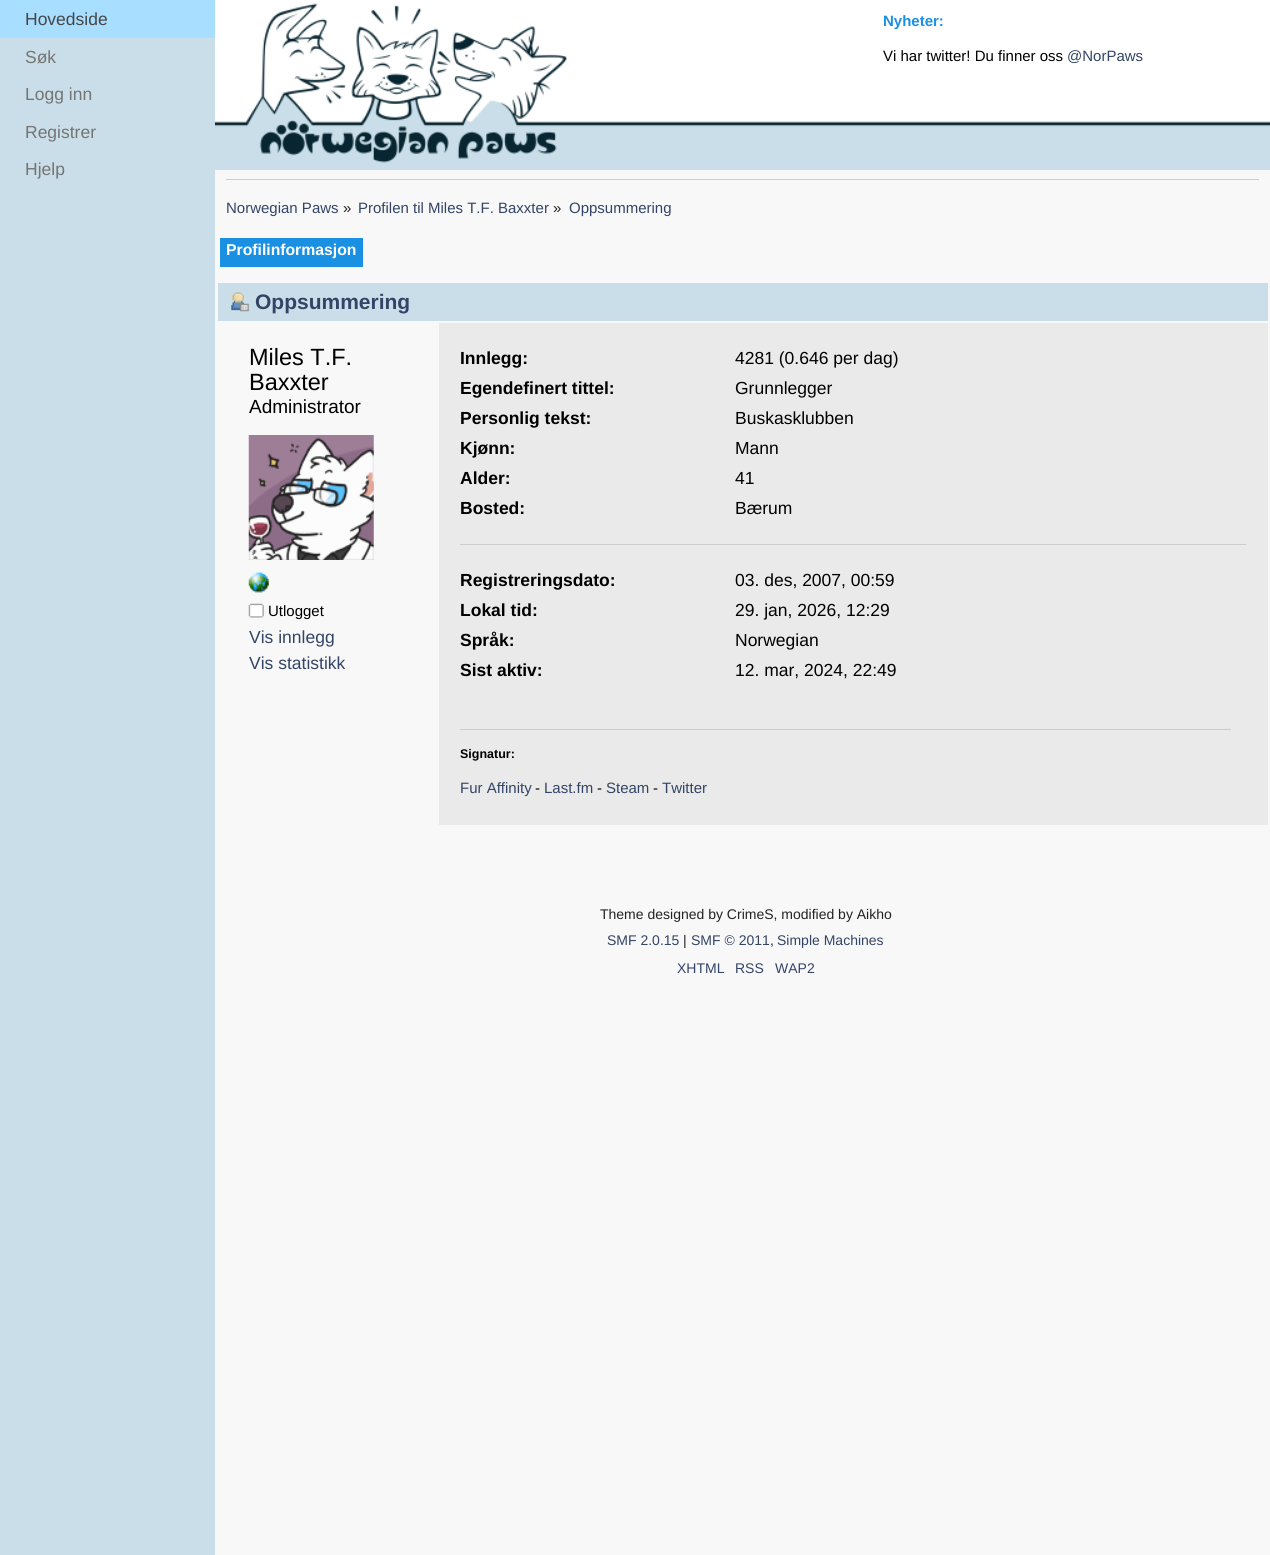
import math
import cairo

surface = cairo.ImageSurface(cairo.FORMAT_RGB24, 1270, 1555)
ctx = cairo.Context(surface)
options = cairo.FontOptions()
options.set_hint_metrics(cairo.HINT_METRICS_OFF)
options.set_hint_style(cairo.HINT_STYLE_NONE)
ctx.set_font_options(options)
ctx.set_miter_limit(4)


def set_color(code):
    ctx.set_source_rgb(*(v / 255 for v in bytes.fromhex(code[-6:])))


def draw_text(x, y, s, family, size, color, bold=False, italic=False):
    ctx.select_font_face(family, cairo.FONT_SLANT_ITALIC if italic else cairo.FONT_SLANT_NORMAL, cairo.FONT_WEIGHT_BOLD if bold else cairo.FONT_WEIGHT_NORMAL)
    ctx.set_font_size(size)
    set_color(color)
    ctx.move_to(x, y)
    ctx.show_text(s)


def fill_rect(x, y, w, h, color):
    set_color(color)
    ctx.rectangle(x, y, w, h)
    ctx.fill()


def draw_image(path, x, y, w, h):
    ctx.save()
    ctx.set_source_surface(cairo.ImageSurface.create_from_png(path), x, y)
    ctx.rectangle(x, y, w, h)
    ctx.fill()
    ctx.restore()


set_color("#f8f8f8")
ctx.paint()
fill_rect(0, 38, 215, 1517, "#cadee9")
fill_rect(0, 0, 215, 38, "#a8deff")
draw_text(25, 25, "Hovedside", "Liberation Sans", 17.5, "#464646")
draw_text(25, 63, "Søk", "Liberation Sans", 17.5, "#747474")
draw_text(25, 100, "Logg inn", "Liberation Sans", 17.5, "#747474")
draw_text(25, 138, "Registrer", "Liberation Sans", 17.5, "#747474")
draw_text(25, 175, "Hjelp", "Liberation Sans", 17.5, "#747474")
draw_image("assets/img1.png", 215, 0, 1055, 170)
draw_image("assets/img2.png", 246, 3, 321, 160)
draw_text(883, 26, "Nyheter:", "Liberation Sans", 15, "#1a90e2", bold=True)
draw_text(883, 61, "Vi har twitter! Du finner oss", "Liberation Sans", 15, "#000000")
draw_text(1067, 61, "@NorPaws", "Liberation Sans", 15, "#334466")
fill_rect(226, 179, 1033, 1, "#cccccc")
draw_text(226, 213, "Norwegian Paws", "Liberation Sans", 15, "#334466")
draw_text(343, 213, "»", "Liberation Sans", 15, "#222222")
draw_text(358, 213, "Profilen til Miles T.F. Baxxter", "Liberation Sans", 15, "#334466")
draw_text(553, 213, "»", "Liberation Sans", 15, "#222222")
draw_text(569, 213, "Oppsummering", "Liberation Sans", 15, "#334466")
fill_rect(220, 238, 143, 29, "#1a90e2")
draw_text(226, 255, "Profilinformasjon", "Liberation Sans", 15.75, "#ffffff", bold=True)
fill_rect(218, 283, 1050, 38, "#cadee9")
draw_image("assets/img3.png", 231, 292, 18, 20)
draw_text(255, 309, "Oppsummering", "Liberation Sans", 21, "#334466", bold=True)
draw_text(249, 365, "Miles T.F.", "Liberation Sans", 23.5, "#000000")
draw_text(249, 390, "Baxxter", "Liberation Sans", 23.5, "#000000")
draw_text(249, 413, "Administrator", "Liberation Sans", 19, "#000000")
draw_image("assets/img4.png", 248, 435, 126, 125)
draw_image("assets/img5.png", 248, 572, 21, 21)
draw_image("assets/img6.png", 248, 603, 16, 15)
draw_text(268, 616, "Utlogget", "Liberation Sans", 15, "#000000")
draw_text(249, 643, "Vis innlegg", "Liberation Sans", 17.5, "#334466")
draw_text(249, 669, "Vis statistikk", "Liberation Sans", 17.5, "#334466")
fill_rect(439, 323, 829, 502, "#eaeaea")
fill_rect(460, 544, 786, 1, "#cccccc")
draw_text(460, 364, "Innlegg:", "Liberation Sans", 17.5, "#000000", bold=True)
draw_text(735, 364, "4281 (0.646 per dag)", "Liberation Sans", 17.5, "#000000")
draw_text(460, 394, "Egendefinert tittel:", "Liberation Sans", 17.5, "#000000", bold=True)
draw_text(735, 394, "Grunnlegger", "Liberation Sans", 17.5, "#000000")
draw_text(460, 424, "Personlig tekst:", "Liberation Sans", 17.5, "#000000", bold=True)
draw_text(735, 424, "Buskasklubben", "Liberation Sans", 17.5, "#000000")
draw_text(460, 454, "Kjønn:", "Liberation Sans", 17.5, "#000000", bold=True)
draw_text(735, 454, "Mann", "Liberation Sans", 17.5, "#000000")
draw_text(460, 484, "Alder:", "Liberation Sans", 17.5, "#000000", bold=True)
draw_text(735, 484, "41", "Liberation Sans", 17.5, "#000000")
draw_text(460, 514, "Bosted:", "Liberation Sans", 17.5, "#000000", bold=True)
draw_text(735, 514, "Bærum", "Liberation Sans", 17.5, "#000000")
draw_text(460, 586, "Registreringsdato:", "Liberation Sans", 17.5, "#000000", bold=True)
draw_text(735, 586, "03. des, 2007, 00:59", "Liberation Sans", 17.5, "#000000")
draw_text(460, 616, "Lokal tid:", "Liberation Sans", 17.5, "#000000", bold=True)
draw_text(735, 616, "29. jan, 2026, 12:29", "Liberation Sans", 17.5, "#000000")
draw_text(460, 646, "Språk:", "Liberation Sans", 17.5, "#000000", bold=True)
draw_text(735, 646, "Norwegian", "Liberation Sans", 17.5, "#000000")
draw_text(460, 676, "Sist aktiv:", "Liberation Sans", 17.5, "#000000", bold=True)
draw_text(735, 676, "12. mar, 2024, 22:49", "Liberation Sans", 17.5, "#000000")
fill_rect(460, 729, 771, 1, "#cccccc")
draw_text(460, 758, "Signatur:", "Liberation Sans", 12.5, "#000000", bold=True)
draw_text(460, 793, "Fur Affinity", "Liberation Sans", 15, "#334466")
draw_text(535, 793, "-", "Liberation Sans", 15, "#000000")
draw_text(544, 793, "Last.fm", "Liberation Sans", 15, "#334466")
draw_text(597, 793, "-", "Liberation Sans", 15, "#000000")
draw_text(606, 793, "Steam", "Liberation Sans", 15, "#334466")
draw_text(653, 793, "-", "Liberation Sans", 15, "#000000")
draw_text(662, 793, "Twitter", "Liberation Sans", 15, "#334466")
draw_text(600, 919, "Theme designed by CrimeS, modified by Aikho", "Liberation Sans", 14, "#222222")
draw_text(607, 945, "SMF 2.0.15", "Liberation Sans", 14, "#334466")
draw_text(683, 945, "|", "Liberation Sans", 14, "#222222")
draw_text(691, 945, "SMF © 2011", "Liberation Sans", 14, "#334466")
draw_text(770, 945, ",", "Liberation Sans", 14, "#222222")
draw_text(777, 945, "Simple Machines", "Liberation Sans", 14, "#334466")
draw_text(677, 973, "XHTML", "Liberation Sans", 14, "#334466")
draw_text(735, 973, "RSS", "Liberation Sans", 14, "#334466")
draw_text(775, 973, "WAP2", "Liberation Sans", 14, "#334466")
surface.write_to_png("output.png")
